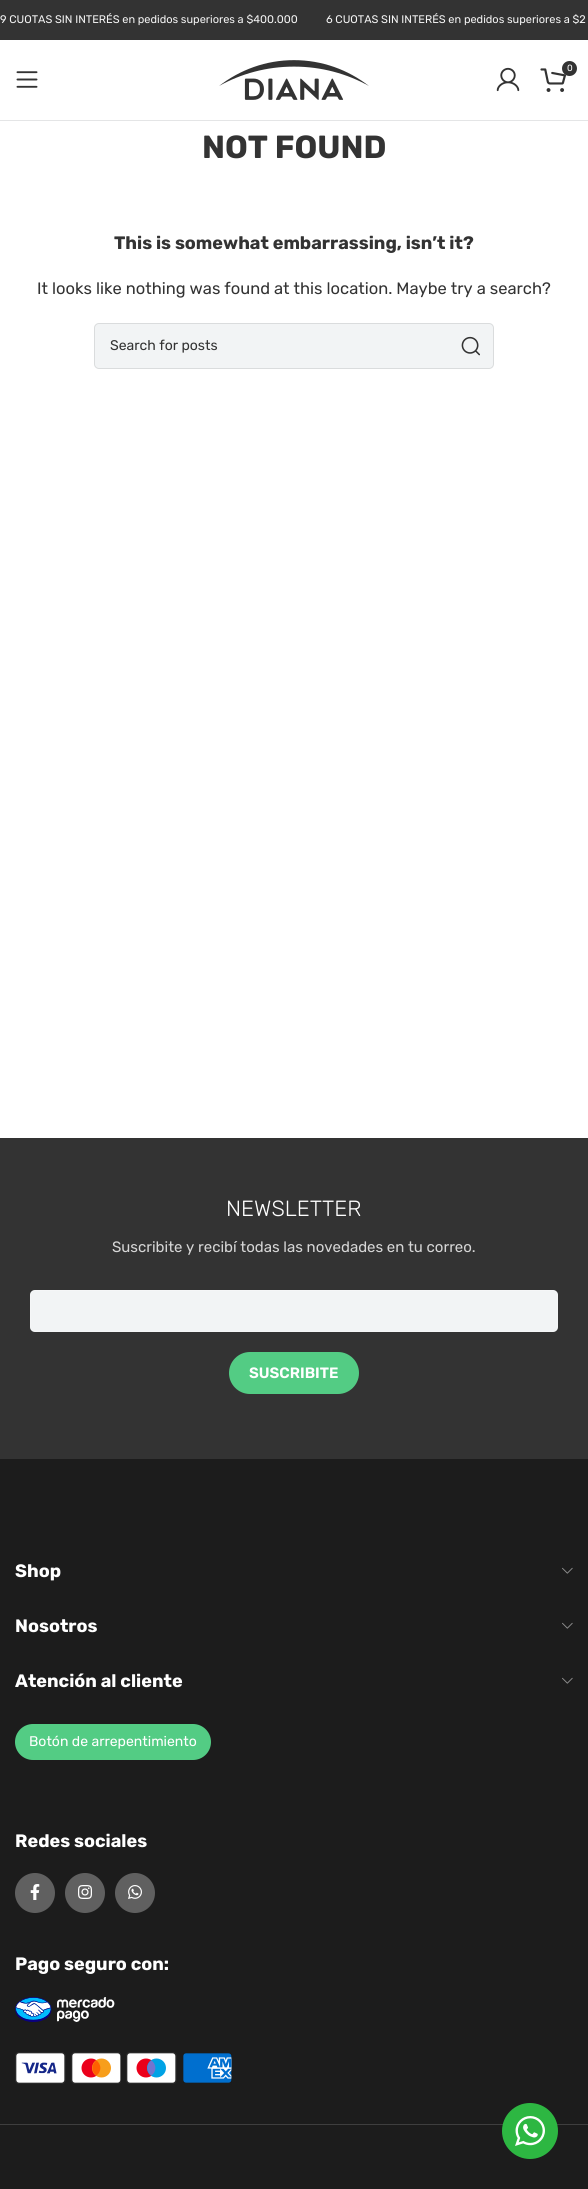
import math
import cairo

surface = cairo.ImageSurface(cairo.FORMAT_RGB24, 588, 2189)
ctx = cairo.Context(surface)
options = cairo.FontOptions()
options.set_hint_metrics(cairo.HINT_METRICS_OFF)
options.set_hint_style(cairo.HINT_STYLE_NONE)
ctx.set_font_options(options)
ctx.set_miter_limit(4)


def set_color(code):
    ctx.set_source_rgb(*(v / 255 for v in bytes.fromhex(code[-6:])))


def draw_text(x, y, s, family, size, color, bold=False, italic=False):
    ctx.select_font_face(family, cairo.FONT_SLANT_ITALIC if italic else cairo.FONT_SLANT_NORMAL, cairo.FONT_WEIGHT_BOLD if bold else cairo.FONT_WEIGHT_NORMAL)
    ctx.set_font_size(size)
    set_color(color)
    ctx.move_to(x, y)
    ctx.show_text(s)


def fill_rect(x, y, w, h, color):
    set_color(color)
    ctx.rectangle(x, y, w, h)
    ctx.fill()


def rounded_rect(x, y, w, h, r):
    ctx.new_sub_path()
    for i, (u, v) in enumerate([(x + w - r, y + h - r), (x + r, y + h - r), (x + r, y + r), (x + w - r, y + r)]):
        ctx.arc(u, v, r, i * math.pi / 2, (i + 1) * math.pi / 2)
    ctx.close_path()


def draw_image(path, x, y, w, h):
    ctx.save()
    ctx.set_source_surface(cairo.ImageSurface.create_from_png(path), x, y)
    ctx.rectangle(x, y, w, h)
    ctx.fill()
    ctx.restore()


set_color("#ffffff")
ctx.paint()
fill_rect(0, 0, 588, 40, "#333333")
draw_text(0, 23, "9 CUOTAS SIN INTERÉS en pedidos superiores a $400.000", "Rubik", 11, "#f4f4f4")
draw_text(326, 23, "6 CUOTAS SIN INTERÉS en pedidos superiores a $2", "Rubik", 11, "#f4f4f4")
fill_rect(0, 120, 588, 1, "#e4e5e6")
draw_image("assets/img1.png", 219, 60, 150, 40)
draw_image("assets/img2.png", 496, 67, 24, 25)
draw_image("assets/img3.png", 540, 68, 26, 24)
set_color("#333333")
ctx.arc(569.5, 68.5, 7.5, 0, 2 * math.pi)
ctx.fill()
draw_text(567, 71, "0", "Rubik", 9, "#ffffff")
draw_image("assets/img4.png", 16, 71, 22, 17)
draw_text(202, 158, "NOT FOUND", "Rubik", 32, "#333333", bold=True)
draw_text(114, 249, "This is somewhat embarrassing, isn’t it?", "Rubik", 18, "#333333", bold=True)
draw_text(37, 294, "It looks like nothing was found at this location. Maybe try a search?", "Rubik", 16.5, "#333333")
set_color("#f2f4f5")
rounded_rect(94, 323, 400, 46, 5)
ctx.fill()
rounded_rect(94.5, 323.5, 399, 45, 4.5)
ctx.set_source_rgba(0, 0, 0, 0.1)
ctx.set_line_width(1)
ctx.stroke()
draw_text(110, 350, "Search for posts", "Rubik", 14, "#333333")
draw_image("assets/img5.png", 461, 336, 19, 20)
fill_rect(0, 1459, 588, 730, "#1c1c1c")
fill_rect(0, 1138, 588, 321, "#333333")
draw_text(226, 1216, "NEWSLETTER", "Rubik Light", 22, "#ffffff")
draw_text(112, 1252, "Suscribite y recibí todas las novedades en tu correo.", "Rubik", 15, "#d6d6d6")
set_color("#f2f4f5")
rounded_rect(30, 1290, 528, 42, 5)
ctx.fill()
rounded_rect(30.5, 1290.5, 527, 41, 4.5)
ctx.set_source_rgba(1, 1, 1, 0.2)
ctx.stroke()
set_color("#53cc84")
rounded_rect(229, 1352, 130, 42, 21)
ctx.fill()
draw_text(249, 1378, "SUSCRIBITE", "Rubik SemiBold", 15, "#ffffff")
draw_text(15, 1577, "Shop", "Rubik", 18, "#ffffff", bold=True)
draw_image("assets/img6.png", 562, 1567, 11, 7)
draw_text(15, 1632, "Nosotros", "Rubik", 18, "#ffffff", bold=True)
draw_image("assets/img6.png", 562, 1622, 11, 7)
draw_text(15, 1687, "Atención al cliente", "Rubik", 18, "#ffffff", bold=True)
draw_image("assets/img6.png", 562, 1677, 11, 7)
set_color("#53cc84")
rounded_rect(15, 1724, 196, 36, 18)
ctx.fill()
draw_text(29, 1746, "Botón de arrepentimiento", "Rubik", 14, "#ffffff")
draw_text(15, 1847, "Redes sociales", "Rubik", 18, "#ffffff", bold=True)
set_color("#606060")
ctx.new_path()
ctx.arc(35, 1893, 20, 0, 2 * math.pi)
ctx.fill()
draw_image("assets/img7.png", 30, 1884, 10, 16)
ctx.arc(85, 1893, 20, 0, 2 * math.pi)
ctx.fill()
draw_image("assets/img8.png", 78, 1885, 14, 14)
ctx.arc(135, 1893, 20, 0, 2 * math.pi)
ctx.fill()
draw_image("assets/img9.png", 128, 1885, 14, 14)
draw_text(15, 1970, "Pago seguro con:", "Rubik", 18, "#ffffff", bold=True)
draw_image("assets/img10.png", 15, 1997, 100, 25)
draw_image("assets/img11.png", 15, 2052, 51, 32)
draw_image("assets/img12.png", 71, 2052, 50, 32)
draw_image("assets/img13.png", 126, 2052, 51, 32)
draw_image("assets/img14.png", 183, 2053, 49, 30)
fill_rect(0, 2124, 588, 1, "#3e3e3e")
set_color("#2db742")
ctx.arc(530, 2131, 28, 0, 2 * math.pi)
ctx.fill()
draw_image("assets/img15.png", 515, 2116, 30, 30)
surface.write_to_png("output.png")
